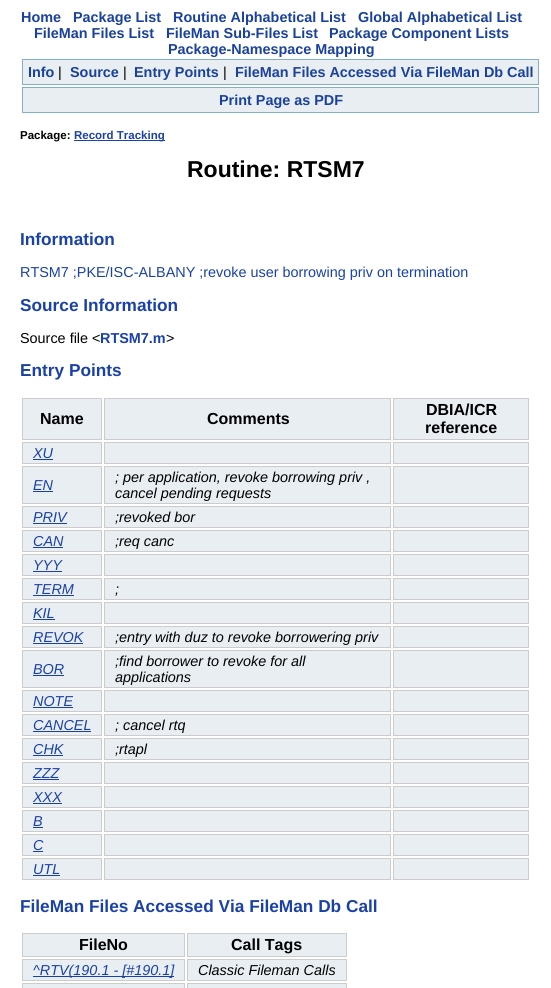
import math
import cairo

surface = cairo.ImageSurface(cairo.FORMAT_RGB24, 551, 988)
ctx = cairo.Context(surface)
options = cairo.FontOptions()
options.set_hint_metrics(cairo.HINT_METRICS_OFF)
options.set_hint_style(cairo.HINT_STYLE_NONE)
ctx.set_font_options(options)
ctx.set_miter_limit(4)


def set_color(code):
    ctx.set_source_rgb(*(v / 255 for v in bytes.fromhex(code[-6:])))


def draw_text(x, y, s, family, size, color, bold=False, italic=False):
    ctx.select_font_face(family, cairo.FONT_SLANT_ITALIC if italic else cairo.FONT_SLANT_NORMAL, cairo.FONT_WEIGHT_BOLD if bold else cairo.FONT_WEIGHT_NORMAL)
    ctx.set_font_size(size)
    set_color(color)
    ctx.move_to(x, y)
    ctx.show_text(s)


def fill_rect(x, y, w, h, color):
    set_color(color)
    ctx.rectangle(x, y, w, h)
    ctx.fill()


set_color("#ffffff")
ctx.paint()
draw_text(21, 22, "Home", "Liberation Sans", 14.4, "#1a419d", bold=True)
draw_text(73, 22, "Package List", "Liberation Sans", 14.4, "#1a419d", bold=True)
draw_text(173, 22, "Routine Alphabetical List", "Liberation Sans", 14.4, "#1a419d", bold=True)
draw_text(358, 22, "Global Alphabetical List", "Liberation Sans", 14.4, "#1a419d", bold=True)
draw_text(34, 38, "FileMan Files List", "Liberation Sans", 14.4, "#1a419d", bold=True)
draw_text(166, 38, "FileMan Sub-Files List", "Liberation Sans", 14.4, "#1a419d", bold=True)
draw_text(329, 38, "Package Component Lists", "Liberation Sans", 14.4, "#1a419d", bold=True)
draw_text(168, 54, "Package-Namespace Mapping", "Liberation Sans", 14.4, "#1a419d", bold=True)
set_color("#e8eef2")
ctx.rectangle(22.5, 59.5, 516, 25)
ctx.fill_preserve()
set_color("#84b0c7")
ctx.set_line_width(1)
ctx.stroke()
draw_text(28, 77, "Info", "Liberation Sans", 14.4, "#1a419d", bold=True)
draw_text(58, 77, "|", "Liberation Sans", 14.4, "#000000")
draw_text(70, 77, "Source", "Liberation Sans", 14.4, "#1a419d", bold=True)
draw_text(123, 77, "|", "Liberation Sans", 14.4, "#000000")
draw_text(134, 77, "Entry Points", "Liberation Sans", 14.4, "#1a419d", bold=True)
draw_text(223, 77, "|", "Liberation Sans", 14.4, "#000000")
draw_text(235, 77, "FileMan Files Accessed Via FileMan Db Call", "Liberation Sans", 14.4, "#1a419d", bold=True)
set_color("#e8eef2")
ctx.rectangle(22.5, 87.5, 516, 25)
ctx.fill_preserve()
set_color("#84b0c7")
ctx.stroke()
draw_text(219, 105, "Print Page as PDF", "Liberation Sans", 14.4, "#1a419d", bold=True)
draw_text(20, 139, "Package:", "Liberation Sans", 11.5, "#000000", bold=True)
fill_rect(74, 140, 91, 1, "#1a41a8")
draw_text(74, 139, "Record Tracking", "Liberation Sans", 11.5, "#1a41a8", bold=True)
draw_text(187, 177, "Routine: RTSM7", "Liberation Sans", 23, "#000000", bold=True)
draw_text(20, 245, "Information", "Liberation Sans", 17.25, "#1a41a8", bold=True)
draw_text(20, 277, "RTSM7 ;PKE/ISC-ALBANY ;revoke user borrowing priv on termination", "Liberation Sans", 14.4, "#1a41a8")
draw_text(20, 311, "Source Information", "Liberation Sans", 17.25, "#1a41a8", bold=True)
draw_text(20, 343, "Source file <", "Liberation Sans", 14.4, "#000000")
draw_text(100, 343, "RTSM7.m", "Liberation Sans", 14.4, "#1a41a8", bold=True)
draw_text(166, 343, ">", "Liberation Sans", 14.4, "#000000")
draw_text(20, 376, "Entry Points", "Liberation Sans", 17.25, "#1a41a8", bold=True)
set_color("#e8eef2")
ctx.rectangle(22.5, 398.5, 79, 41)
ctx.fill_preserve()
set_color("#cccccc")
ctx.stroke()
draw_text(40, 424, "Name", "Liberation Sans", 16, "#000000", bold=True)
set_color("#e8eef2")
ctx.rectangle(104.5, 398.5, 286, 41)
ctx.fill_preserve()
set_color("#cccccc")
ctx.stroke()
draw_text(207, 424, "Comments", "Liberation Sans", 16, "#000000", bold=True)
set_color("#e8eef2")
ctx.rectangle(393.5, 398.5, 135, 41)
ctx.fill_preserve()
set_color("#cccccc")
ctx.stroke()
draw_text(426, 415, "DBIA/ICR", "Liberation Sans", 16, "#000000", bold=True)
draw_text(425, 433, "reference", "Liberation Sans", 16, "#000000", bold=True)
set_color("#e8eef2")
ctx.rectangle(22.5, 442.5, 79, 21)
ctx.fill_preserve()
set_color("#cccccc")
ctx.stroke()
draw_text(33, 458, "XU", "Liberation Sans", 14.4, "#1a41a8", italic=True)
fill_rect(33, 459, 20, 1, "#1a41a8")
set_color("#e8eef2")
ctx.rectangle(104.5, 442.5, 286, 21)
ctx.fill_preserve()
set_color("#cccccc")
ctx.stroke()
set_color("#e8eef2")
ctx.rectangle(393.5, 442.5, 135, 21)
ctx.fill_preserve()
set_color("#cccccc")
ctx.stroke()
set_color("#e8eef2")
ctx.rectangle(22.5, 466.5, 79, 37)
ctx.fill_preserve()
set_color("#cccccc")
ctx.stroke()
draw_text(33, 490, "EN", "Liberation Sans", 14.4, "#1a41a8", italic=True)
fill_rect(33, 491, 20, 1, "#1a41a8")
set_color("#e8eef2")
ctx.rectangle(104.5, 466.5, 286, 37)
ctx.fill_preserve()
set_color("#cccccc")
ctx.stroke()
draw_text(115, 482, "; per application, revoke borrowing priv ,", "Liberation Sans", 14.4, "#000000", italic=True)
draw_text(115, 498, "cancel pending requests", "Liberation Sans", 14.4, "#000000", italic=True)
set_color("#e8eef2")
ctx.rectangle(393.5, 466.5, 135, 37)
ctx.fill_preserve()
set_color("#cccccc")
ctx.stroke()
set_color("#e8eef2")
ctx.rectangle(22.5, 506.5, 79, 21)
ctx.fill_preserve()
set_color("#cccccc")
ctx.stroke()
draw_text(33, 522, "PRIV", "Liberation Sans", 14.4, "#1a41a8", italic=True)
fill_rect(33, 523, 34, 1, "#1a41a8")
set_color("#e8eef2")
ctx.rectangle(104.5, 506.5, 286, 21)
ctx.fill_preserve()
set_color("#cccccc")
ctx.stroke()
draw_text(115, 522, ";revoked bor", "Liberation Sans", 14.4, "#000000", italic=True)
set_color("#e8eef2")
ctx.rectangle(393.5, 506.5, 135, 21)
ctx.fill_preserve()
set_color("#cccccc")
ctx.stroke()
set_color("#e8eef2")
ctx.rectangle(22.5, 530.5, 79, 21)
ctx.fill_preserve()
set_color("#cccccc")
ctx.stroke()
draw_text(33, 546, "CAN", "Liberation Sans", 14.4, "#1a41a8", italic=True)
fill_rect(33, 547, 30, 1, "#1a41a8")
set_color("#e8eef2")
ctx.rectangle(104.5, 530.5, 286, 21)
ctx.fill_preserve()
set_color("#cccccc")
ctx.stroke()
draw_text(115, 546, ";req canc", "Liberation Sans", 14.4, "#000000", italic=True)
set_color("#e8eef2")
ctx.rectangle(393.5, 530.5, 135, 21)
ctx.fill_preserve()
set_color("#cccccc")
ctx.stroke()
set_color("#e8eef2")
ctx.rectangle(22.5, 554.5, 79, 21)
ctx.fill_preserve()
set_color("#cccccc")
ctx.stroke()
draw_text(33, 570, "YYY", "Liberation Sans", 14.4, "#1a41a8", italic=True)
fill_rect(33, 571, 29, 1, "#1a41a8")
set_color("#e8eef2")
ctx.rectangle(104.5, 554.5, 286, 21)
ctx.fill_preserve()
set_color("#cccccc")
ctx.stroke()
set_color("#e8eef2")
ctx.rectangle(393.5, 554.5, 135, 21)
ctx.fill_preserve()
set_color("#cccccc")
ctx.stroke()
set_color("#e8eef2")
ctx.rectangle(22.5, 578.5, 79, 21)
ctx.fill_preserve()
set_color("#cccccc")
ctx.stroke()
draw_text(33, 594, "TERM", "Liberation Sans", 14.4, "#1a41a8", italic=True)
fill_rect(33, 595, 41, 1, "#1a41a8")
set_color("#e8eef2")
ctx.rectangle(104.5, 578.5, 286, 21)
ctx.fill_preserve()
set_color("#cccccc")
ctx.stroke()
draw_text(115, 594, ";", "Liberation Sans", 14.4, "#000000", italic=True)
set_color("#e8eef2")
ctx.rectangle(393.5, 578.5, 135, 21)
ctx.fill_preserve()
set_color("#cccccc")
ctx.stroke()
set_color("#e8eef2")
ctx.rectangle(22.5, 602.5, 79, 21)
ctx.fill_preserve()
set_color("#cccccc")
ctx.stroke()
draw_text(33, 618, "KIL", "Liberation Sans", 14.4, "#1a41a8", italic=True)
fill_rect(33, 619, 22, 1, "#1a41a8")
set_color("#e8eef2")
ctx.rectangle(104.5, 602.5, 286, 21)
ctx.fill_preserve()
set_color("#cccccc")
ctx.stroke()
set_color("#e8eef2")
ctx.rectangle(393.5, 602.5, 135, 21)
ctx.fill_preserve()
set_color("#cccccc")
ctx.stroke()
set_color("#e8eef2")
ctx.rectangle(22.5, 626.5, 79, 21)
ctx.fill_preserve()
set_color("#cccccc")
ctx.stroke()
draw_text(33, 642, "REVOK", "Liberation Sans", 14.4, "#1a41a8", italic=True)
fill_rect(33, 643, 50, 1, "#1a41a8")
set_color("#e8eef2")
ctx.rectangle(104.5, 626.5, 286, 21)
ctx.fill_preserve()
set_color("#cccccc")
ctx.stroke()
draw_text(115, 642, ";entry with duz to revoke borrowering priv", "Liberation Sans", 14.4, "#000000", italic=True)
set_color("#e8eef2")
ctx.rectangle(393.5, 626.5, 135, 21)
ctx.fill_preserve()
set_color("#cccccc")
ctx.stroke()
set_color("#e8eef2")
ctx.rectangle(22.5, 650.5, 79, 37)
ctx.fill_preserve()
set_color("#cccccc")
ctx.stroke()
draw_text(33, 674, "BOR", "Liberation Sans", 14.4, "#1a41a8", italic=True)
fill_rect(33, 675, 31, 1, "#1a41a8")
set_color("#e8eef2")
ctx.rectangle(104.5, 650.5, 286, 37)
ctx.fill_preserve()
set_color("#cccccc")
ctx.stroke()
draw_text(115, 666, ";find borrower to revoke for all", "Liberation Sans", 14.4, "#000000", italic=True)
draw_text(115, 682, "applications", "Liberation Sans", 14.4, "#000000", italic=True)
set_color("#e8eef2")
ctx.rectangle(393.5, 650.5, 135, 37)
ctx.fill_preserve()
set_color("#cccccc")
ctx.stroke()
set_color("#e8eef2")
ctx.rectangle(22.5, 690.5, 79, 21)
ctx.fill_preserve()
set_color("#cccccc")
ctx.stroke()
draw_text(33, 706, "NOTE", "Liberation Sans", 14.4, "#1a41a8", italic=True)
fill_rect(33, 707, 40, 1, "#1a41a8")
set_color("#e8eef2")
ctx.rectangle(104.5, 690.5, 286, 21)
ctx.fill_preserve()
set_color("#cccccc")
ctx.stroke()
set_color("#e8eef2")
ctx.rectangle(393.5, 690.5, 135, 21)
ctx.fill_preserve()
set_color("#cccccc")
ctx.stroke()
set_color("#e8eef2")
ctx.rectangle(22.5, 714.5, 79, 21)
ctx.fill_preserve()
set_color("#cccccc")
ctx.stroke()
draw_text(33, 730, "CANCEL", "Liberation Sans", 14.4, "#1a41a8", italic=True)
fill_rect(33, 731, 58, 1, "#1a41a8")
set_color("#e8eef2")
ctx.rectangle(104.5, 714.5, 286, 21)
ctx.fill_preserve()
set_color("#cccccc")
ctx.stroke()
draw_text(115, 730, "; cancel rtq", "Liberation Sans", 14.4, "#000000", italic=True)
set_color("#e8eef2")
ctx.rectangle(393.5, 714.5, 135, 21)
ctx.fill_preserve()
set_color("#cccccc")
ctx.stroke()
set_color("#e8eef2")
ctx.rectangle(22.5, 738.5, 79, 21)
ctx.fill_preserve()
set_color("#cccccc")
ctx.stroke()
draw_text(33, 754, "CHK", "Liberation Sans", 14.4, "#1a41a8", italic=True)
fill_rect(33, 755, 30, 1, "#1a41a8")
set_color("#e8eef2")
ctx.rectangle(104.5, 738.5, 286, 21)
ctx.fill_preserve()
set_color("#cccccc")
ctx.stroke()
draw_text(115, 754, ";rtapl", "Liberation Sans", 14.4, "#000000", italic=True)
set_color("#e8eef2")
ctx.rectangle(393.5, 738.5, 135, 21)
ctx.fill_preserve()
set_color("#cccccc")
ctx.stroke()
set_color("#e8eef2")
ctx.rectangle(22.5, 762.5, 79, 21)
ctx.fill_preserve()
set_color("#cccccc")
ctx.stroke()
draw_text(33, 778, "ZZZ", "Liberation Sans", 14.4, "#1a41a8", italic=True)
fill_rect(33, 779, 26, 1, "#1a41a8")
set_color("#e8eef2")
ctx.rectangle(104.5, 762.5, 286, 21)
ctx.fill_preserve()
set_color("#cccccc")
ctx.stroke()
set_color("#e8eef2")
ctx.rectangle(393.5, 762.5, 135, 21)
ctx.fill_preserve()
set_color("#cccccc")
ctx.stroke()
set_color("#e8eef2")
ctx.rectangle(22.5, 786.5, 79, 21)
ctx.fill_preserve()
set_color("#cccccc")
ctx.stroke()
draw_text(33, 802, "XXX", "Liberation Sans", 14.4, "#1a41a8", italic=True)
fill_rect(33, 803, 29, 1, "#1a41a8")
set_color("#e8eef2")
ctx.rectangle(104.5, 786.5, 286, 21)
ctx.fill_preserve()
set_color("#cccccc")
ctx.stroke()
set_color("#e8eef2")
ctx.rectangle(393.5, 786.5, 135, 21)
ctx.fill_preserve()
set_color("#cccccc")
ctx.stroke()
set_color("#e8eef2")
ctx.rectangle(22.5, 810.5, 79, 21)
ctx.fill_preserve()
set_color("#cccccc")
ctx.stroke()
draw_text(33, 826, "B", "Liberation Sans", 14.4, "#1a41a8", italic=True)
fill_rect(33, 827, 10, 1, "#1a41a8")
set_color("#e8eef2")
ctx.rectangle(104.5, 810.5, 286, 21)
ctx.fill_preserve()
set_color("#cccccc")
ctx.stroke()
set_color("#e8eef2")
ctx.rectangle(393.5, 810.5, 135, 21)
ctx.fill_preserve()
set_color("#cccccc")
ctx.stroke()
set_color("#e8eef2")
ctx.rectangle(22.5, 834.5, 79, 21)
ctx.fill_preserve()
set_color("#cccccc")
ctx.stroke()
draw_text(33, 850, "C", "Liberation Sans", 14.4, "#1a41a8", italic=True)
fill_rect(33, 851, 10, 1, "#1a41a8")
set_color("#e8eef2")
ctx.rectangle(104.5, 834.5, 286, 21)
ctx.fill_preserve()
set_color("#cccccc")
ctx.stroke()
set_color("#e8eef2")
ctx.rectangle(393.5, 834.5, 135, 21)
ctx.fill_preserve()
set_color("#cccccc")
ctx.stroke()
set_color("#e8eef2")
ctx.rectangle(22.5, 858.5, 79, 21)
ctx.fill_preserve()
set_color("#cccccc")
ctx.stroke()
draw_text(33, 874, "UTL", "Liberation Sans", 14.4, "#1a41a8", italic=True)
fill_rect(33, 875, 27, 1, "#1a41a8")
set_color("#e8eef2")
ctx.rectangle(104.5, 858.5, 286, 21)
ctx.fill_preserve()
set_color("#cccccc")
ctx.stroke()
set_color("#e8eef2")
ctx.rectangle(393.5, 858.5, 135, 21)
ctx.fill_preserve()
set_color("#cccccc")
ctx.stroke()
draw_text(20, 912, "FileMan Files Accessed Via FileMan Db Call", "Liberation Sans", 17.25, "#1a41a8", bold=True)
set_color("#e8eef2")
ctx.rectangle(22.5, 933.5, 162, 23)
ctx.fill_preserve()
set_color("#cccccc")
ctx.stroke()
draw_text(79, 950, "FileNo", "Liberation Sans", 16, "#000000", bold=True)
set_color("#e8eef2")
ctx.rectangle(187.5, 933.5, 159, 23)
ctx.fill_preserve()
set_color("#cccccc")
ctx.stroke()
draw_text(231, 950, "Call Tags", "Liberation Sans", 16, "#000000", bold=True)
set_color("#e8eef2")
ctx.rectangle(22.5, 959.5, 162, 21)
ctx.fill_preserve()
set_color("#cccccc")
ctx.stroke()
fill_rect(33, 976, 141, 1, "#1a41a8")
draw_text(33, 975, "^RTV(190.1 - [#190.1]", "Liberation Sans", 14.4, "#1a41a8", italic=True)
set_color("#e8eef2")
ctx.rectangle(187.5, 959.5, 159, 21)
ctx.fill_preserve()
set_color("#cccccc")
ctx.stroke()
draw_text(198, 975, "Classic Fileman Calls", "Liberation Sans", 14.4, "#000000", italic=True)
set_color("#e8eef2")
ctx.rectangle(22.5, 983.5, 162, 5)
ctx.fill_preserve()
set_color("#cccccc")
ctx.stroke()
set_color("#e8eef2")
ctx.rectangle(187.5, 983.5, 159, 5)
ctx.fill_preserve()
set_color("#cccccc")
ctx.stroke()
surface.write_to_png("output.png")
